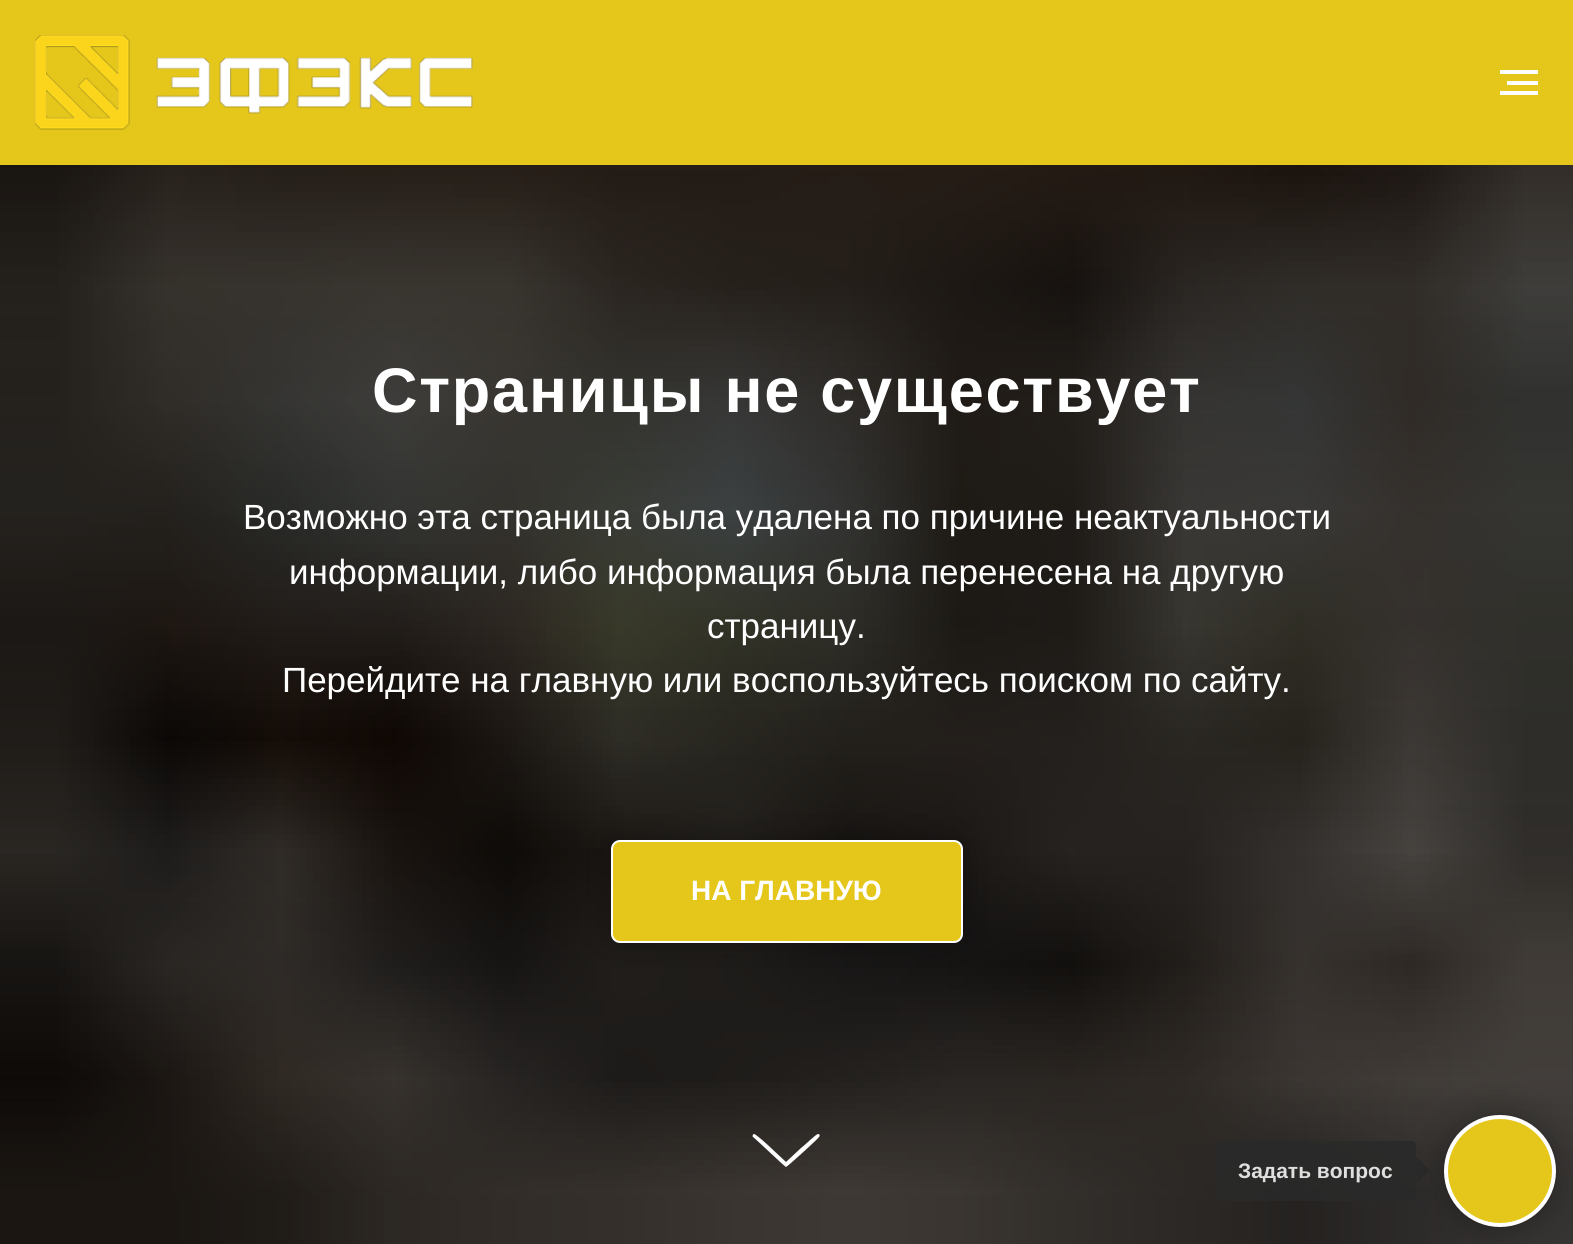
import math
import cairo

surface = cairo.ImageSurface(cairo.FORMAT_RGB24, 1573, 1244)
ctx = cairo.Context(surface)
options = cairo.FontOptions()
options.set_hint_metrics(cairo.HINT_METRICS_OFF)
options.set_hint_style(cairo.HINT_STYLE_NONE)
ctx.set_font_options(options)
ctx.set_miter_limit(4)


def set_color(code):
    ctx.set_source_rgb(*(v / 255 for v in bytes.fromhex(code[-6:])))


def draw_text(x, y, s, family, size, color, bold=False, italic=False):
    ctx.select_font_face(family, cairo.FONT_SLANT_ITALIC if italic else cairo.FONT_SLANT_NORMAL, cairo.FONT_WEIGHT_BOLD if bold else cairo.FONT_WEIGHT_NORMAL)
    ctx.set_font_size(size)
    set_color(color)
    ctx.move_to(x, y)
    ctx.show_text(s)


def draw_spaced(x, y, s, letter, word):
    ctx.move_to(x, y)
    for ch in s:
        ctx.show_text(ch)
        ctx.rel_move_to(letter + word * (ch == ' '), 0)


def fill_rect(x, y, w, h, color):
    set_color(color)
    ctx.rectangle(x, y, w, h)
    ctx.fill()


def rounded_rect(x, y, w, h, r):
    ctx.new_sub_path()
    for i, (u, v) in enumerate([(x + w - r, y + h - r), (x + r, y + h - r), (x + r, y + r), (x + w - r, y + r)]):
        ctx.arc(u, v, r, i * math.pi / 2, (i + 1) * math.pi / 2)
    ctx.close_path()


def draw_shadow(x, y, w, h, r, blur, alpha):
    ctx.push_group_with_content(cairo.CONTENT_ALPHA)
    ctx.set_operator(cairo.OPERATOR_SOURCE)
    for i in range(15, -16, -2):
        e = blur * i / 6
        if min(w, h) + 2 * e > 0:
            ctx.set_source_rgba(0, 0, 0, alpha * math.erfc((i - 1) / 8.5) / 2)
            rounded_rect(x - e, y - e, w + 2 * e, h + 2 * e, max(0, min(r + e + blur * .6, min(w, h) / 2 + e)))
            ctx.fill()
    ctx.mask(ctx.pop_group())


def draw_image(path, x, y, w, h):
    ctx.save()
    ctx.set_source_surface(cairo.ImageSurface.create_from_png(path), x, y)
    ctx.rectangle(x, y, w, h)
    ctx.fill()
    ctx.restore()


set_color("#ffffff")
ctx.paint()
fill_rect(0, 0, 1573, 165, "#e5c71c")
draw_image("assets/img1.png", 35, 35, 438, 95)
fill_rect(1500, 70, 38, 4, "#ffffff")
fill_rect(1507, 81, 31, 4, "#ffffff")
fill_rect(1500, 91, 38, 4, "#ffffff")
draw_image("assets/img2.png", 0, 165, 1573, 1079)
ctx.select_font_face("Liberation Sans", cairo.FONT_SLANT_NORMAL, cairo.FONT_WEIGHT_BOLD)
ctx.set_font_size(63)
draw_spaced(372, 412, "Страницы не существует", 1.75, 0)
draw_text(243, 529, "Возможно эта страница была удалена по причине неактуальности", "Liberation Sans", 35, "#ffffff")
draw_text(289, 584, "информации, либо информация была перенесена на другую", "Liberation Sans", 35, "#ffffff")
draw_text(707, 638, "страницу.", "Liberation Sans", 35, "#ffffff")
draw_text(282, 692, "Перейдите на главную или воспользуйтесь поиском по сайту.", "Liberation Sans", 35, "#ffffff")
set_color("#000000")
draw_shadow(611, 840, 352, 103, 9, 17.5, 0.3)
set_color("#e5c71c")
rounded_rect(612, 841, 350, 101, 8)
ctx.fill_preserve()
set_color("#ffffff")
ctx.stroke()
draw_text(691, 900, "НА ГЛАВНУЮ", "Liberation Sans", 28, "#ffffff", bold=True)
ctx.new_path()
ctx.move_to(786, 1167)
ctx.curve_to(785, 1167, 757, 1140, 753, 1137)
ctx.curve_to(752, 1136, 753, 1134, 754, 1134)
ctx.curve_to(756, 1134, 769, 1146, 771, 1148)
ctx.line_to(786, 1162)
ctx.line_to(801, 1148)
ctx.curve_to(804, 1146, 816, 1134, 818, 1134)
ctx.curve_to(820, 1134, 820, 1136, 819, 1137)
ctx.curve_to(818, 1139, 787, 1167, 786, 1167)
ctx.close_path()
ctx.fill()
ctx.set_source_rgba(0.161, 0.161, 0.161, 0.85)
rounded_rect(1216, 1141, 200, 60, 5)
ctx.fill()
draw_text(1238, 1178, "Задать вопрос", "Liberation Sans", 21, "#dfdfdf", bold=True)
ctx.set_source_rgba(0.161, 0.161, 0.161, 0.85)
ctx.new_path()
ctx.move_to(1416, 1184.5)
ctx.line_to(1416, 1156.5)
ctx.line_to(1430, 1170.5)
ctx.close_path()
ctx.fill()
set_color("#000000")
draw_shadow(1444, 1115, 112, 112, 56, 17.5, 0.3)
set_color("#e5c71c")
ctx.arc(1500, 1171, 54, 0, 2 * math.pi)
ctx.fill_preserve()
set_color("#ffffff")
ctx.set_line_width(4)
ctx.stroke()
surface.write_to_png("output.png")
